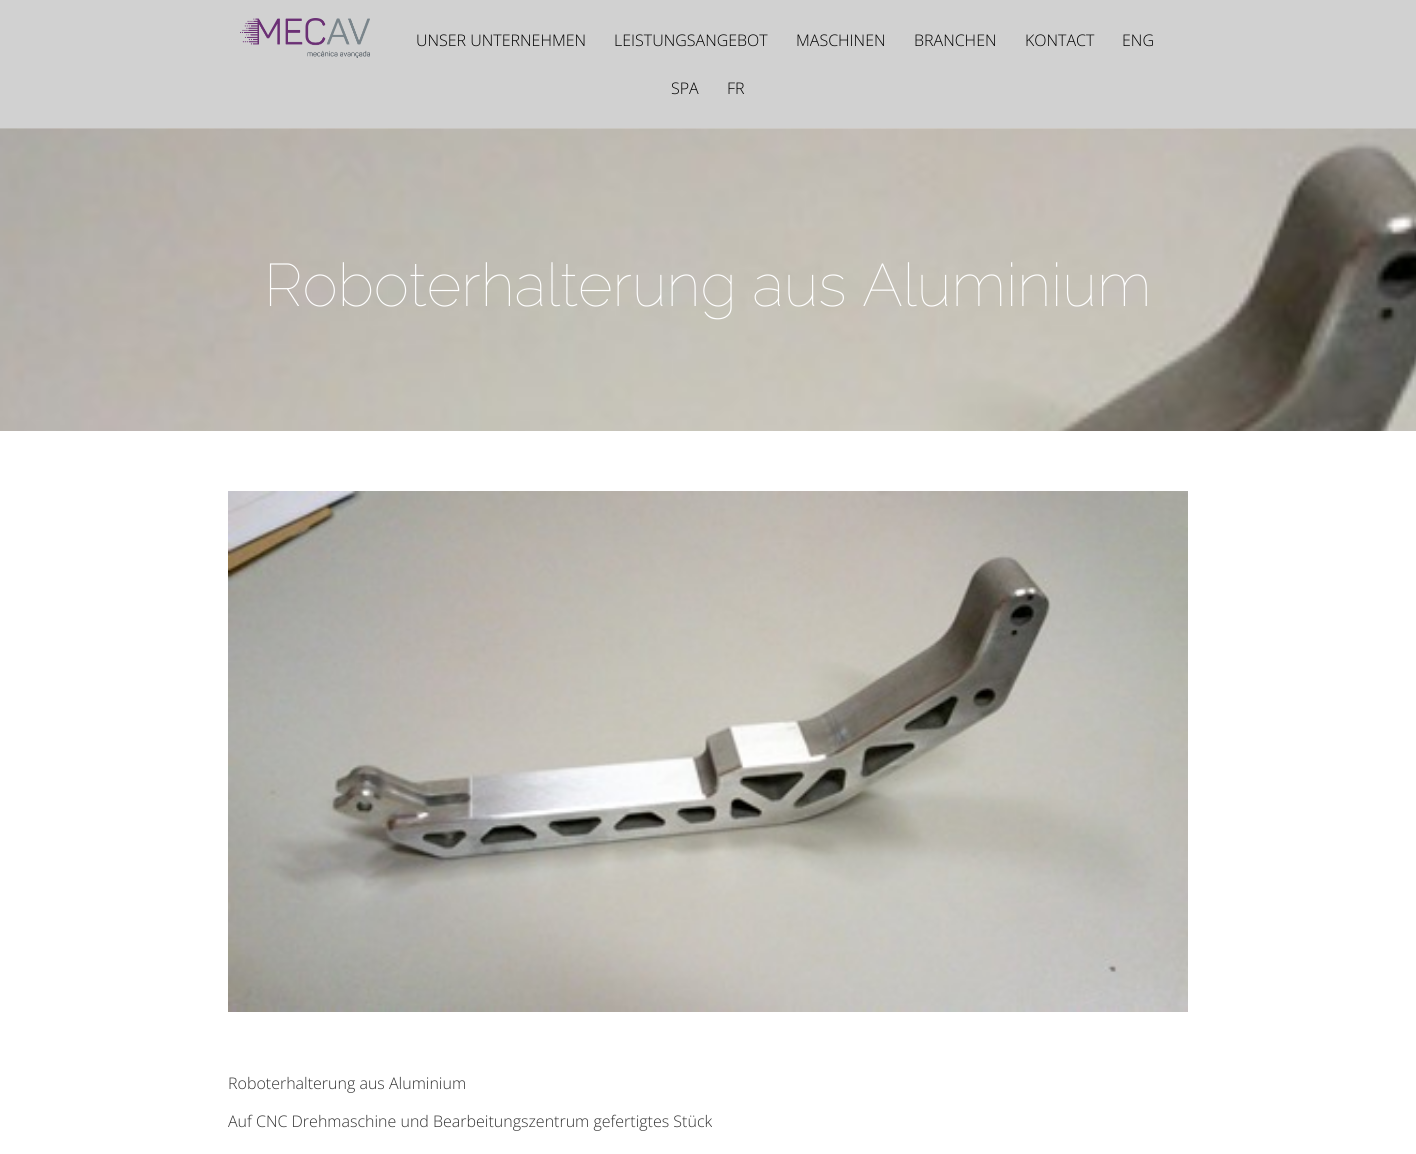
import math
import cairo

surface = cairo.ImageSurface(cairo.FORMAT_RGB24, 1416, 1154)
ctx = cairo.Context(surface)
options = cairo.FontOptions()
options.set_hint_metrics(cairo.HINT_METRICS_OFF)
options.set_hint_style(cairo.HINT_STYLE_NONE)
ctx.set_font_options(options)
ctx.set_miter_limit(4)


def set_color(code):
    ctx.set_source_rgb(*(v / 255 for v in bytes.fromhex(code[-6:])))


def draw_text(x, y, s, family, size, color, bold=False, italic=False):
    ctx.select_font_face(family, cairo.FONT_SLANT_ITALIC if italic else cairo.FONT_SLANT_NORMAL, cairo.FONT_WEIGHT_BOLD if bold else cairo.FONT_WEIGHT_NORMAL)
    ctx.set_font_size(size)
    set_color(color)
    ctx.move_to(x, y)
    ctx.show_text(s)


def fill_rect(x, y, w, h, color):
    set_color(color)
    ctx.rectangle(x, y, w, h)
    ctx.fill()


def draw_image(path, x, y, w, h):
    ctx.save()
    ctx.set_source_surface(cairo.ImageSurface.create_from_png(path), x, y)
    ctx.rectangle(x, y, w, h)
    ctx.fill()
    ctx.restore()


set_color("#d1d1d1")
ctx.paint()
draw_image("assets/img2.png", 0, 128, 1416, 303)
ctx.set_source_rgba(1, 1, 1, 0.2)
ctx.rectangle(0, 128, 1416, 1)
ctx.fill()
draw_image("assets/img1.png", 240, 18, 130, 40)
draw_text(416, 46, "UNSER UNTERNEHMEN", "Open Sans Light", 16, "#000000")
draw_text(614, 46, "LEISTUNGSANGEBOT", "Open Sans Light", 16, "#000000")
draw_text(796, 46, "MASCHINEN", "Open Sans Light", 16, "#000000")
draw_text(914, 46, "BRANCHEN", "Open Sans Light", 16, "#000000")
draw_text(1025, 46, "KONTACT", "Open Sans Light", 16, "#000000")
draw_text(1122, 46, "ENG", "Open Sans Light", 16, "#000000")
draw_text(671, 94, "SPA", "Open Sans Light", 16, "#000000")
draw_text(727, 94, "FR", "Open Sans Light", 16, "#000000")
draw_text(264, 306, "Roboterhalterung aus Aluminium", "Raleway Thin", 60, "#ffffff")
fill_rect(0, 431, 1416, 723, "#ffffff")
draw_image("assets/img3.png", 228, 491, 960, 521)
draw_text(228, 1089, "Roboterhalterung aus Aluminium", "Open Sans Light", 16, "#333333")
draw_text(228, 1127, "Auf CNC Drehmaschine und Bearbeitungszentrum gefertigtes Stück", "Open Sans Light", 16, "#333333")
surface.write_to_png("output.png")
